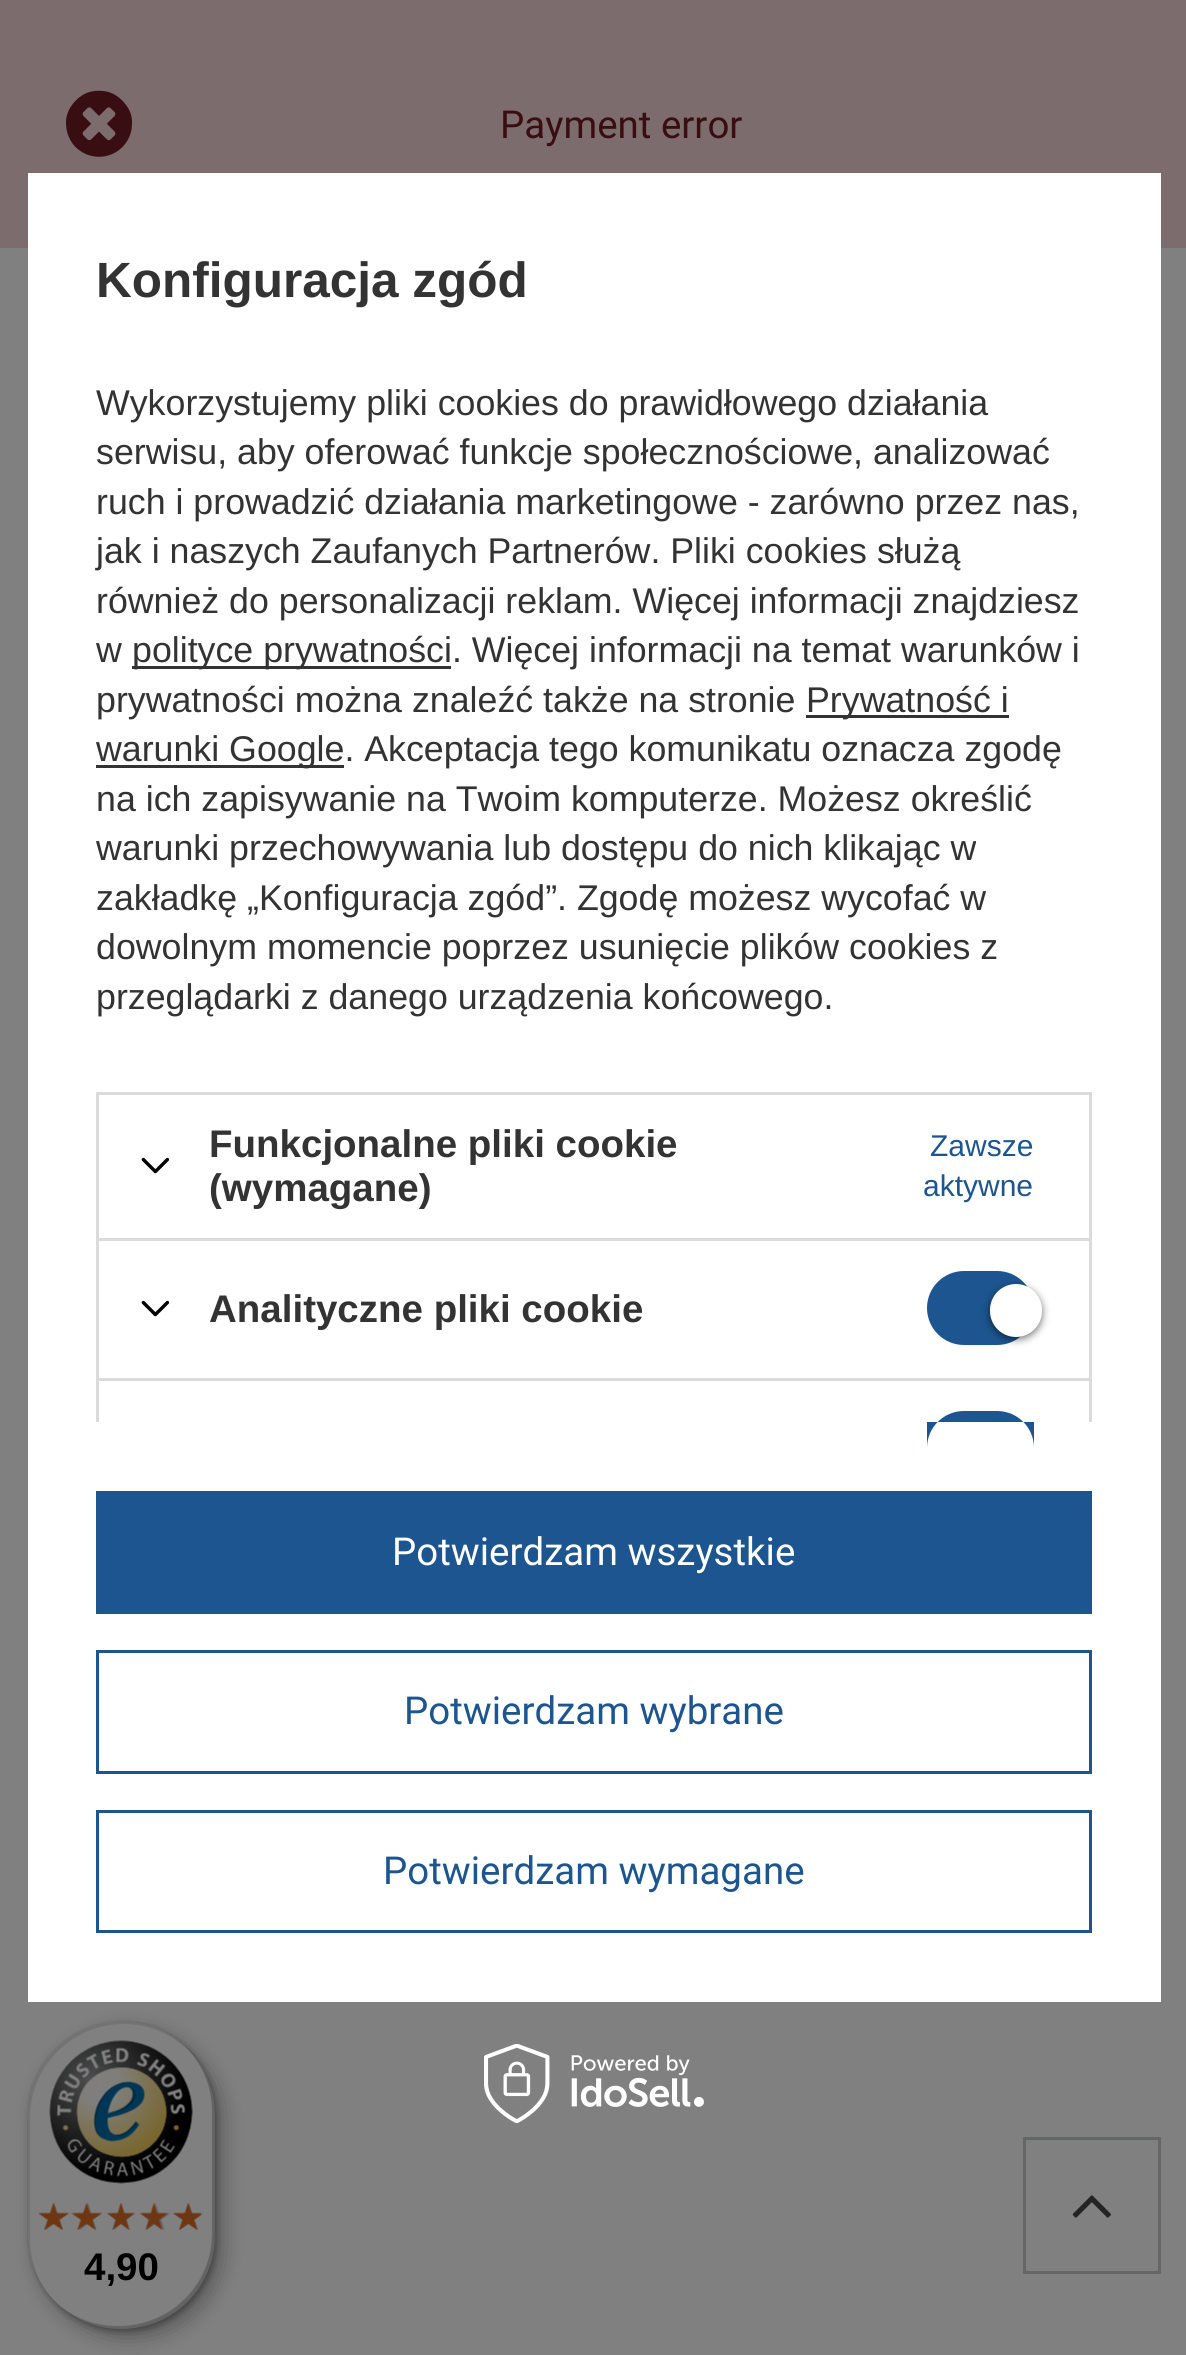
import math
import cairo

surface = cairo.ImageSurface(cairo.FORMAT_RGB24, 1186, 2355)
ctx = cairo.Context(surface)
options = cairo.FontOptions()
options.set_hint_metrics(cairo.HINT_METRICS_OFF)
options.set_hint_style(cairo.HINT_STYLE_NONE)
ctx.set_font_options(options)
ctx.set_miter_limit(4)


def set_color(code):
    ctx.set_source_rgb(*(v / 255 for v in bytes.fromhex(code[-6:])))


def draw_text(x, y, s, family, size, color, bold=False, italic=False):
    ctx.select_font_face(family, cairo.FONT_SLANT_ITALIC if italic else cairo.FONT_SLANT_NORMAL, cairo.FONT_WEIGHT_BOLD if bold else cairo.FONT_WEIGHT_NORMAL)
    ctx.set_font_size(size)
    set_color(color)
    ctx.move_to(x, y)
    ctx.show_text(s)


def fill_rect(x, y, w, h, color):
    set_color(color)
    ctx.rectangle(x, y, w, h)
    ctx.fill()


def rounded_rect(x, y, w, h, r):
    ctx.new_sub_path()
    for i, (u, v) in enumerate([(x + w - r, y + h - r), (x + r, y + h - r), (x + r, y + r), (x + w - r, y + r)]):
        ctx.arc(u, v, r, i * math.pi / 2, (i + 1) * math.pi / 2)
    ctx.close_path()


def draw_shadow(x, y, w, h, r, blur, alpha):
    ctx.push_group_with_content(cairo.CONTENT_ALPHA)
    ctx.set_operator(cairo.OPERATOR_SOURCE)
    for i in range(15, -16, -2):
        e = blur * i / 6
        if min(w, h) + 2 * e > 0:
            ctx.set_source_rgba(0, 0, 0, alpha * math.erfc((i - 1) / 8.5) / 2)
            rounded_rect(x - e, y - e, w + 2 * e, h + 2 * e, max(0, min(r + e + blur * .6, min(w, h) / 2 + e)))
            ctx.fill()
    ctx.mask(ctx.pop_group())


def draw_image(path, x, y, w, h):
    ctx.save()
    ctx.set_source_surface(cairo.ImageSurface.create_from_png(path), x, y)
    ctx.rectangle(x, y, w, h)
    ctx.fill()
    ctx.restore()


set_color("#808080")
ctx.paint()
fill_rect(0, 0, 1186, 248, "#7c6c6d")
draw_image("assets/img1.png", 66, 90, 66, 67)
draw_text(500, 138, "Payment error", "Roboto", 38.5, "#390e12")
set_color("#000000")
draw_shadow(36, 2030, 187, 308, 93.5, 11, 0.15)
draw_shadow(30, 2024, 187, 308, 93.5, 3, 0.15)
ctx.set_source_rgba(0, 0, 0, 0.1)
ctx.new_path()
ctx.move_to(124, 2024)
ctx.curve_to(156, 2024, 185, 2041, 202, 2067)
ctx.curve_to(186, 2039, 156, 2021, 122, 2021)
ctx.curve_to(70, 2021, 28, 2063, 28, 2114)
ctx.line_to(28, 2236)
ctx.curve_to(28, 2257, 35, 2276, 47, 2292)
ctx.curve_to(36, 2277, 30, 2258, 30, 2238)
ctx.line_to(30, 2118)
ctx.curve_to(30, 2066, 72, 2024, 124, 2024)
ctx.close_path()
ctx.fill()
ctx.set_source_rgba(0, 0, 0, 0.2)
ctx.new_path()
ctx.move_to(58, 2304)
ctx.curve_to(75, 2320, 97, 2329, 122, 2329)
ctx.curve_to(173, 2329, 215, 2287, 215, 2236)
ctx.line_to(215, 2114)
ctx.curve_to(215, 2087, 203, 2062, 183, 2044)
ctx.curve_to(201, 2062, 212, 2085, 212, 2112)
ctx.line_to(212, 2233)
ctx.curve_to(212, 2285, 170, 2326, 118, 2326)
ctx.curve_to(95, 2326, 74, 2318, 58, 2304)
ctx.close_path()
ctx.fill()
ctx.set_source_rgba(0.098, 0.098, 0.098, 0.2)
ctx.new_path()
ctx.move_to(80, 2319)
ctx.curve_to(92, 2325, 106, 2329, 122, 2329)
ctx.curve_to(173, 2329, 215, 2287, 215, 2236)
ctx.line_to(215, 2114)
ctx.curve_to(215, 2078, 195, 2047, 165, 2032)
ctx.curve_to(194, 2047, 213, 2078, 213, 2113)
ctx.line_to(213, 2234)
ctx.curve_to(213, 2286, 171, 2328, 119, 2328)
ctx.curve_to(105, 2328, 92, 2325, 80, 2319)
ctx.close_path()
ctx.fill()
ctx.set_source_rgba(0.502, 0.502, 0.502, 0.3)
ctx.new_path()
ctx.move_to(73, 2316)
ctx.curve_to(87, 2324, 104, 2329, 122, 2329)
ctx.curve_to(173, 2329, 215, 2287, 215, 2236)
ctx.line_to(215, 2114)
ctx.curve_to(215, 2078, 194, 2046, 164, 2031)
ctx.curve_to(193, 2047, 213, 2078, 213, 2113)
ctx.line_to(213, 2234)
ctx.curve_to(213, 2286, 171, 2328, 120, 2328)
ctx.curve_to(103, 2328, 87, 2324, 73, 2316)
ctx.close_path()
ctx.fill()
set_color("#000000")
draw_shadow(36, 2030, 187, 308, 93.5, 11, 0.15)
fill_rect(28, 173, 1133, 1829, "#ffffff")
draw_text(96, 297, "Konfiguracja zgód", "Liberation Sans", 49.5, "#333333", bold=True)
draw_text(96, 415, "Wykorzystujemy pliki cookies do prawidłowego działania", "Liberation Sans", 35.75, "#333333")
draw_text(96, 464, "serwisu, aby oferować funkcje społecznościowe, analizować", "Liberation Sans", 35.75, "#333333")
draw_text(96, 514, "ruch i prowadzić działania marketingowe - zarówno przez nas,", "Liberation Sans", 35.75, "#333333")
draw_text(96, 563, "jak i naszych Zaufanych Partnerów. Pliki cookies służą", "Liberation Sans", 35.75, "#333333")
draw_text(96, 613, "również do personalizacji reklam. Więcej informacji znajdziesz", "Liberation Sans", 35.75, "#333333")
draw_text(96, 662, "w", "Liberation Sans", 35.75, "#333333")
fill_rect(132, 666, 319, 3, "#333333")
draw_text(132, 662, "polityce prywatności. Więcej informacji na temat warunków i", "Liberation Sans", 35.75, "#333333")
draw_text(96, 712, "prywatności można znaleźć także na stronie", "Liberation Sans", 35.75, "#333333")
fill_rect(806, 715, 203, 3, "#333333")
draw_text(806, 712, "Prywatność i", "Liberation Sans", 35.75, "#333333")
fill_rect(96, 765, 248, 3, "#333333")
draw_text(96, 761, "warunki Google. Akceptacja tego komunikatu oznacza zgodę", "Liberation Sans", 35.75, "#333333")
draw_text(96, 811, "na ich zapisywanie na Twoim komputerze. Możesz określić", "Liberation Sans", 35.75, "#333333")
draw_text(96, 860, "warunki przechowywania lub dostępu do nich klikając w", "Liberation Sans", 35.75, "#333333")
draw_text(96, 910, "zakładkę „Konfiguracja zgód”. Zgodę możesz wycofać w", "Liberation Sans", 35.75, "#333333")
draw_text(96, 959, "dowolnym momencie poprzez usunięcie plików cookies z", "Liberation Sans", 35.75, "#333333")
draw_text(96, 1009, "przeglądarki z danego urządzenia końcowego.", "Liberation Sans", 35.75, "#333333")
fill_rect(96, 1092, 996, 3, "#dbdbdb")
fill_rect(1089, 1092, 3, 146, "#dbdbdb")
fill_rect(96, 1092, 3, 146, "#dbdbdb")
draw_image("assets/img2.png", 141, 1157, 29, 17)
draw_text(209, 1157, "Funkcjonalne pliki cookie", "Liberation Sans", 38.5, "#333333", bold=True)
draw_text(209, 1201, "(wymagane)", "Liberation Sans", 38.5, "#333333", bold=True)
draw_text(930, 1156, "Zawsze", "Liberation Sans", 30, "#1c558f")
draw_text(923, 1196, "aktywne", "Liberation Sans", 30, "#1c558f")
fill_rect(96, 1238, 996, 3, "#dbdbdb")
fill_rect(1089, 1238, 3, 140, "#dbdbdb")
fill_rect(96, 1238, 3, 140, "#dbdbdb")
draw_image("assets/img2.png", 141, 1300, 29, 17)
draw_text(209, 1322, "Analityczne pliki cookie", "Liberation Sans", 38.5, "#333333", bold=True)
set_color("#1c558f")
rounded_rect(927, 1271, 107, 74, 37)
ctx.fill()
set_color("#000000")
draw_shadow(990, 1287, 52, 52, 26, 4, 0.56)
set_color("#ffffff")
rounded_rect(990, 1284, 52, 53, 26)
ctx.fill()
fill_rect(96, 1491, 996, 123, "#1c558f")
ctx.save()
ctx.rectangle(69, 242, 1050, 1180)
ctx.clip()
ctx.rectangle(97.5, 1379.5, 993, 140)
set_color("#dbdbdb")
ctx.set_line_width(3)
ctx.stroke()
ctx.restore()
ctx.new_path()
ctx.move_to(964, 1411)
ctx.line_to(997, 1411)
ctx.curve_to(1017.5, 1411, 1034, 1427.5, 1034, 1448)
ctx.line_to(1034, 1422)
ctx.line_to(927, 1422)
ctx.line_to(927, 1448)
ctx.curve_to(927, 1427.5, 943.5, 1411, 964, 1411)
ctx.close_path()
ctx.fill()
draw_text(392, 1565, "Potwierdzam wszystkie", "Roboto", 38.5, "#ffffff")
ctx.rectangle(97.5, 1651.5, 993, 121)
set_color("#1c558f")
ctx.set_line_width(3)
ctx.stroke()
draw_text(404, 1724, "Potwierdzam wybrane", "Roboto", 38.5, "#1c558f")
ctx.rectangle(97.5, 1811.5, 993, 120)
ctx.stroke()
draw_text(383, 1884, "Potwierdzam wymagane", "Roboto", 38.5, "#1c558f")
draw_image("assets/img3.png", 484, 2044, 220, 79)
ctx.rectangle(1024.5, 2138.5, 135, 134)
set_color("#656767")
ctx.stroke()
draw_image("assets/img4.png", 1072, 2195, 39, 23)
set_color("#000000")
draw_shadow(30, 2024, 187, 308, 93.5, 3, 0.15)
set_color("#808080")
rounded_rect(28, 2021, 187, 308, 93.5)
ctx.fill()
ctx.set_source_rgba(0, 0, 0, 0.1)
ctx.new_path()
ctx.move_to(124, 2024)
ctx.curve_to(156, 2024, 185, 2041, 202, 2067)
ctx.curve_to(186, 2039, 156, 2021, 122, 2021)
ctx.curve_to(70, 2021, 28, 2063, 28, 2114)
ctx.line_to(28, 2236)
ctx.curve_to(28, 2257, 35, 2276, 47, 2292)
ctx.curve_to(36, 2277, 30, 2258, 30, 2238)
ctx.line_to(30, 2118)
ctx.curve_to(30, 2066, 72, 2024, 124, 2024)
ctx.close_path()
ctx.fill()
ctx.set_source_rgba(0, 0, 0, 0.2)
ctx.new_path()
ctx.move_to(58, 2304)
ctx.curve_to(75, 2320, 97, 2329, 122, 2329)
ctx.curve_to(173, 2329, 215, 2287, 215, 2236)
ctx.line_to(215, 2114)
ctx.curve_to(215, 2087, 203, 2062, 183, 2044)
ctx.curve_to(201, 2062, 212, 2085, 212, 2112)
ctx.line_to(212, 2233)
ctx.curve_to(212, 2285, 170, 2326, 118, 2326)
ctx.curve_to(95, 2326, 74, 2318, 58, 2304)
ctx.close_path()
ctx.fill()
ctx.set_source_rgba(0.098, 0.098, 0.098, 0.2)
ctx.new_path()
ctx.move_to(80, 2319)
ctx.curve_to(92, 2325, 106, 2329, 122, 2329)
ctx.curve_to(173, 2329, 215, 2287, 215, 2236)
ctx.line_to(215, 2114)
ctx.curve_to(215, 2078, 195, 2047, 165, 2032)
ctx.curve_to(194, 2047, 213, 2078, 213, 2113)
ctx.line_to(213, 2234)
ctx.curve_to(213, 2286, 171, 2328, 119, 2328)
ctx.curve_to(105, 2328, 92, 2325, 80, 2319)
ctx.close_path()
ctx.fill()
ctx.set_source_rgba(0.502, 0.502, 0.502, 0.3)
ctx.new_path()
ctx.move_to(73, 2316)
ctx.curve_to(87, 2324, 104, 2329, 122, 2329)
ctx.curve_to(173, 2329, 215, 2287, 215, 2236)
ctx.line_to(215, 2114)
ctx.curve_to(215, 2078, 194, 2046, 164, 2031)
ctx.curve_to(193, 2047, 213, 2078, 213, 2113)
ctx.line_to(213, 2234)
ctx.curve_to(213, 2286, 171, 2328, 120, 2328)
ctx.curve_to(103, 2328, 87, 2324, 73, 2316)
ctx.close_path()
ctx.fill()
draw_image("assets/img5.png", 49, 2040, 144, 144)
draw_image("assets/img11.png", 38, 2203, 31, 27)
draw_image("assets/img6.png", 38, 2202, 31, 28)
draw_image("assets/img12.png", 74, 2203, 28, 27)
draw_image("assets/img7.png", 71, 2202, 31, 28)
draw_image("assets/img12.png", 107, 2203, 28, 27)
draw_image("assets/img8.png", 107, 2202, 28, 28)
draw_image("assets/img13.png", 140, 2203, 31, 27)
draw_image("assets/img9.png", 140, 2202, 28, 28)
draw_image("assets/img13.png", 173, 2203, 31, 27)
draw_image("assets/img10.png", 173, 2202, 28, 28)
draw_text(84, 2280, "4,90", "Liberation Sans", 38.5, "#000000", bold=True)
surface.write_to_png("output.png")
